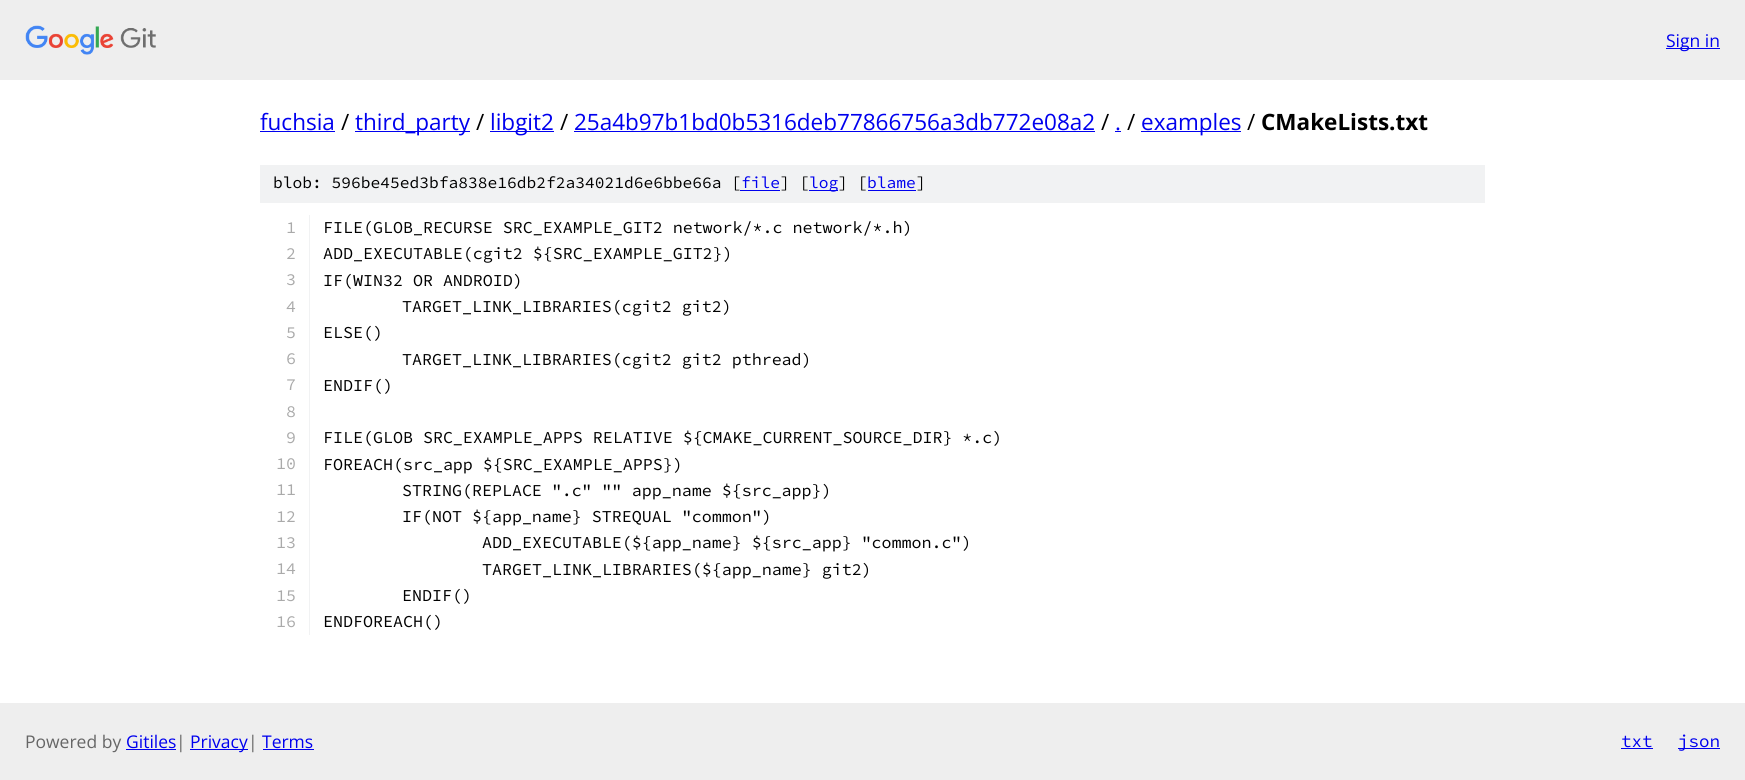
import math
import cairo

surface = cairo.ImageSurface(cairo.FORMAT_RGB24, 1745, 780)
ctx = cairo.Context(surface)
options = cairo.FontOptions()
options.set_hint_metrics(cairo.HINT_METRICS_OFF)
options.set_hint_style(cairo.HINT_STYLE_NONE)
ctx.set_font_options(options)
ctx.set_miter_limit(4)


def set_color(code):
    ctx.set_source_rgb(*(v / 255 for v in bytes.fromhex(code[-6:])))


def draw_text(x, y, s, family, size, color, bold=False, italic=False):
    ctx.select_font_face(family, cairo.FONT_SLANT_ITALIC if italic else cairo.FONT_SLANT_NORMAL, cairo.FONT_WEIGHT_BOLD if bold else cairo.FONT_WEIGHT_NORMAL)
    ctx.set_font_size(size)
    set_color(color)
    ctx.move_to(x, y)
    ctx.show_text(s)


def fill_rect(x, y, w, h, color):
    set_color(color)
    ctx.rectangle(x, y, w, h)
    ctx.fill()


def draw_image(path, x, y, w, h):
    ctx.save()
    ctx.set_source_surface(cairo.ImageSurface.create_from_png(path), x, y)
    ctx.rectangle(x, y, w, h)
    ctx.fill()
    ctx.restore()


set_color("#ffffff")
ctx.paint()
fill_rect(0, 0, 1745, 80, "#eeeeee")
draw_image("assets/img1.png", 25, 25, 131, 30)
fill_rect(1666, 48, 54, 1, "#0000ee")
draw_text(1666, 47, "Sign in", "Open Sans", 17.5, "#0000ee")
draw_text(260, 130, "fuchsia", "Open Sans", 22.5, "#0000ee")
fill_rect(260, 131, 75, 1, "#0000ee")
draw_text(341, 130, "/", "Open Sans", 22.5, "#000000")
fill_rect(355, 131, 115, 1, "#0000ee")
draw_text(355, 130, "third_party", "Open Sans", 22.5, "#0000ee")
draw_text(476, 130, "/", "Open Sans", 22.5, "#000000")
fill_rect(490, 131, 64, 1, "#0000ee")
draw_text(490, 130, "libgit2", "Open Sans", 22.5, "#0000ee")
draw_text(560, 130, "/", "Open Sans", 22.5, "#000000")
draw_text(574, 130, "25a4b97b1bd0b5316deb77866756a3db772e08a2", "Open Sans", 22.5, "#0000ee")
fill_rect(574, 131, 521, 1, "#0000ee")
draw_text(1101, 130, "/", "Open Sans", 22.5, "#000000")
draw_text(1115, 130, ".", "Open Sans", 22.5, "#0000ee")
fill_rect(1115, 131, 6, 1, "#0000ee")
draw_text(1127, 130, "/", "Open Sans", 22.5, "#000000")
fill_rect(1141, 131, 100, 1, "#0000ee")
draw_text(1141, 130, "examples", "Open Sans", 22.5, "#0000ee")
draw_text(1247, 130, "/", "Open Sans", 22.5, "#000000")
draw_text(1261, 130, "CMakeLists.txt", "Open Sans", 22.5, "#000000", bold=True)
fill_rect(260, 165, 1225, 38, "#f1f2f3")
draw_text(273, 188, "blob: 596be45ed3bfa838e16db2f2a34021d6e6bbe66a [", "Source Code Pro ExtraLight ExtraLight", 16.25, "#000000")
draw_text(741, 188, "file", "Source Code Pro ExtraLight ExtraLight", 16.25, "#0000ee")
fill_rect(740, 190, 40, 1, "#0000ee")
draw_text(780, 188, "] [", "Source Code Pro ExtraLight ExtraLight", 16.25, "#000000")
fill_rect(809, 190, 29, 1, "#0000ee")
draw_text(809, 188, "log", "Source Code Pro ExtraLight ExtraLight", 16.25, "#0000ee")
draw_text(838, 188, "] [", "Source Code Pro ExtraLight ExtraLight", 16.25, "#000000")
draw_text(867, 188, "blame", "Source Code Pro ExtraLight ExtraLight", 16.25, "#0000ee")
fill_rect(868, 190, 48, 1, "#0000ee")
draw_text(916, 188, "]", "Source Code Pro ExtraLight ExtraLight", 16.25, "#000000")
fill_rect(309, 215, 1, 420, "#f1f2f3")
draw_text(286, 233, "1", "Source Code Pro ExtraLight ExtraLight", 16.65, "#aaaaaa")
draw_text(323, 233, "FILE(GLOB_RECURSE SRC_EXAMPLE_GIT2 network/*.c network/*.h)", "Source Code Pro ExtraLight ExtraLight", 16.65, "#000000")
draw_text(286, 259, "2", "Source Code Pro ExtraLight ExtraLight", 16.65, "#aaaaaa")
draw_text(323, 259, "ADD_EXECUTABLE(cgit2 ${SRC_EXAMPLE_GIT2})", "Source Code Pro ExtraLight ExtraLight", 16.65, "#000000")
draw_text(286, 285, "3", "Source Code Pro ExtraLight ExtraLight", 16.65, "#aaaaaa")
draw_text(323, 286, "IF(WIN32 OR ANDROID)", "Source Code Pro ExtraLight ExtraLight", 16.65, "#000000")
draw_text(286, 312, "4", "Source Code Pro ExtraLight ExtraLight", 16.65, "#aaaaaa")
draw_text(402, 312, "TARGET_LINK_LIBRARIES(cgit2 git2)", "Source Code Pro ExtraLight ExtraLight", 16.65, "#000000")
draw_text(286, 338, "5", "Source Code Pro ExtraLight ExtraLight", 16.65, "#aaaaaa")
draw_text(323, 338, "ELSE()", "Source Code Pro ExtraLight ExtraLight", 16.65, "#000000")
draw_text(286, 364, "6", "Source Code Pro ExtraLight ExtraLight", 16.65, "#aaaaaa")
draw_text(402, 365, "TARGET_LINK_LIBRARIES(cgit2 git2 pthread)", "Source Code Pro ExtraLight ExtraLight", 16.65, "#000000")
draw_text(286, 390, "7", "Source Code Pro ExtraLight ExtraLight", 16.65, "#aaaaaa")
draw_text(323, 391, "ENDIF()", "Source Code Pro ExtraLight ExtraLight", 16.65, "#000000")
draw_text(286, 417, "8", "Source Code Pro ExtraLight ExtraLight", 16.65, "#aaaaaa")
draw_text(286, 443, "9", "Source Code Pro ExtraLight ExtraLight", 16.65, "#aaaaaa")
draw_text(323, 443, "FILE(GLOB SRC_EXAMPLE_APPS RELATIVE ${CMAKE_CURRENT_SOURCE_DIR} *.c)", "Source Code Pro ExtraLight ExtraLight", 16.65, "#000000")
draw_text(276, 469, "10", "Source Code Pro ExtraLight ExtraLight", 16.65, "#aaaaaa")
draw_text(323, 470, "FOREACH(src_app ${SRC_EXAMPLE_APPS})", "Source Code Pro ExtraLight ExtraLight", 16.65, "#000000")
draw_text(276, 495, "11", "Source Code Pro ExtraLight ExtraLight", 16.65, "#aaaaaa")
draw_text(402, 496, "STRING(REPLACE \".c\" \"\" app_name ${src_app})", "Source Code Pro ExtraLight ExtraLight", 16.65, "#000000")
draw_text(276, 522, "12", "Source Code Pro ExtraLight ExtraLight", 16.65, "#aaaaaa")
draw_text(402, 522, "IF(NOT ${app_name} STREQUAL \"common\")", "Source Code Pro ExtraLight ExtraLight", 16.65, "#000000")
draw_text(276, 548, "13", "Source Code Pro ExtraLight ExtraLight", 16.65, "#aaaaaa")
draw_text(482, 548, "ADD_EXECUTABLE(${app_name} ${src_app} \"common.c\")", "Source Code Pro ExtraLight ExtraLight", 16.65, "#000000")
draw_text(276, 574, "14", "Source Code Pro ExtraLight ExtraLight", 16.65, "#aaaaaa")
draw_text(482, 575, "TARGET_LINK_LIBRARIES(${app_name} git2)", "Source Code Pro ExtraLight ExtraLight", 16.65, "#000000")
draw_text(276, 601, "15", "Source Code Pro ExtraLight ExtraLight", 16.65, "#aaaaaa")
draw_text(402, 601, "ENDIF()", "Source Code Pro ExtraLight ExtraLight", 16.65, "#000000")
draw_text(276, 627, "16", "Source Code Pro ExtraLight ExtraLight", 16.65, "#aaaaaa")
draw_text(323, 627, "ENDFOREACH()", "Source Code Pro ExtraLight ExtraLight", 16.65, "#000000")
fill_rect(0, 703, 1745, 77, "#eeeeee")
draw_text(25, 748, "Powered by", "Open Sans", 17.5, "#666666")
draw_text(126, 748, "Gitiles", "Open Sans", 17.5, "#0000ee")
fill_rect(126, 749, 50, 1, "#0000ee")
draw_text(176, 748, "|", "Open Sans", 17.5, "#666666")
fill_rect(190, 749, 58, 1, "#0000ee")
draw_text(190, 748, "Privacy", "Open Sans", 17.5, "#0000ee")
draw_text(248, 748, "|", "Open Sans", 17.5, "#666666")
draw_text(262, 748, "Terms", "Open Sans", 17.5, "#0000ee")
fill_rect(263, 749, 51, 1, "#0000ee")
draw_text(1621, 747, "txt", "Source Code Pro ExtraLight ExtraLight", 17.5, "#0000ee")
fill_rect(1621, 748, 32, 1, "#0000ee")
fill_rect(1678, 748, 42, 1, "#0000ee")
draw_text(1678, 747, "json", "Source Code Pro ExtraLight ExtraLight", 17.5, "#0000ee")
surface.write_to_png("output.png")
